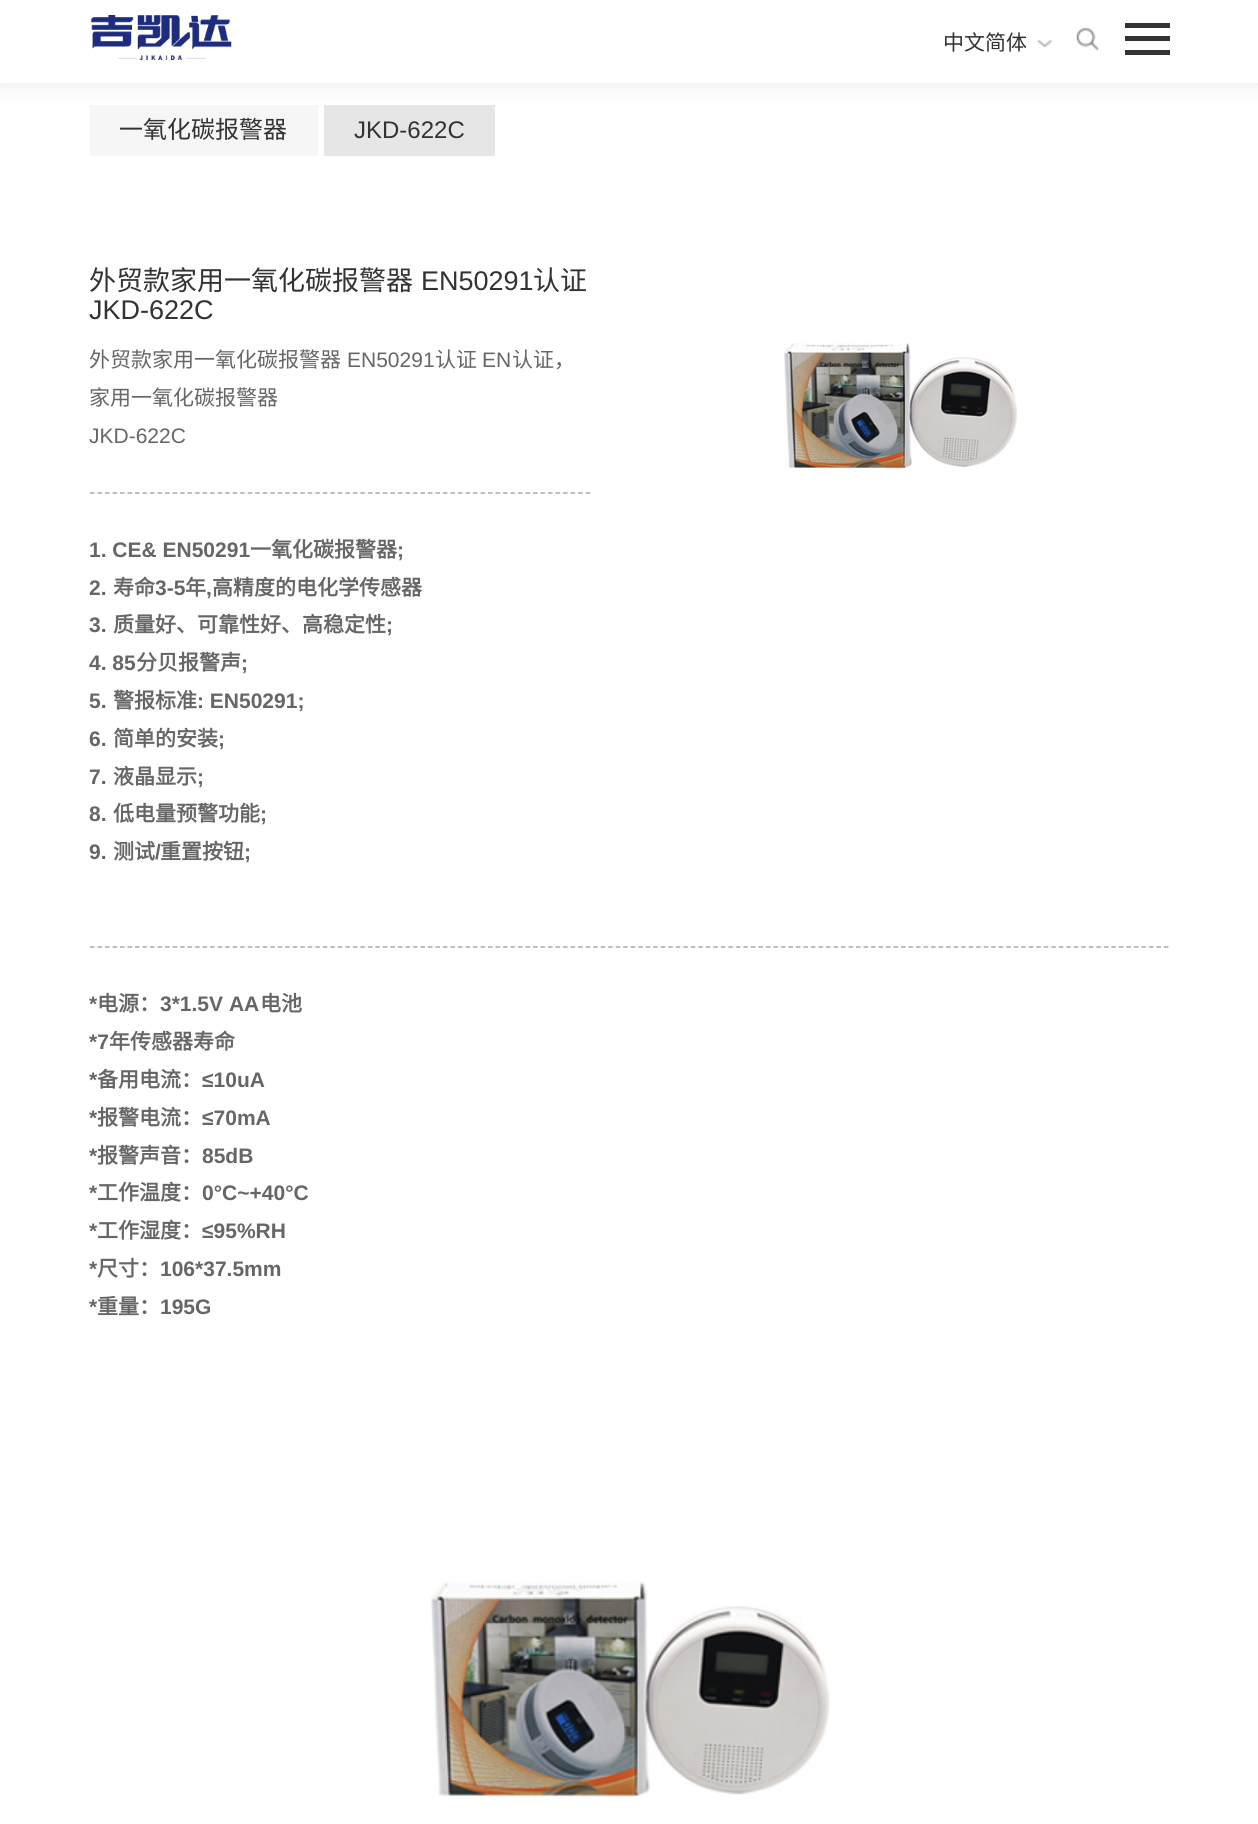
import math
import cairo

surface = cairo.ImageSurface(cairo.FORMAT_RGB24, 1258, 1824)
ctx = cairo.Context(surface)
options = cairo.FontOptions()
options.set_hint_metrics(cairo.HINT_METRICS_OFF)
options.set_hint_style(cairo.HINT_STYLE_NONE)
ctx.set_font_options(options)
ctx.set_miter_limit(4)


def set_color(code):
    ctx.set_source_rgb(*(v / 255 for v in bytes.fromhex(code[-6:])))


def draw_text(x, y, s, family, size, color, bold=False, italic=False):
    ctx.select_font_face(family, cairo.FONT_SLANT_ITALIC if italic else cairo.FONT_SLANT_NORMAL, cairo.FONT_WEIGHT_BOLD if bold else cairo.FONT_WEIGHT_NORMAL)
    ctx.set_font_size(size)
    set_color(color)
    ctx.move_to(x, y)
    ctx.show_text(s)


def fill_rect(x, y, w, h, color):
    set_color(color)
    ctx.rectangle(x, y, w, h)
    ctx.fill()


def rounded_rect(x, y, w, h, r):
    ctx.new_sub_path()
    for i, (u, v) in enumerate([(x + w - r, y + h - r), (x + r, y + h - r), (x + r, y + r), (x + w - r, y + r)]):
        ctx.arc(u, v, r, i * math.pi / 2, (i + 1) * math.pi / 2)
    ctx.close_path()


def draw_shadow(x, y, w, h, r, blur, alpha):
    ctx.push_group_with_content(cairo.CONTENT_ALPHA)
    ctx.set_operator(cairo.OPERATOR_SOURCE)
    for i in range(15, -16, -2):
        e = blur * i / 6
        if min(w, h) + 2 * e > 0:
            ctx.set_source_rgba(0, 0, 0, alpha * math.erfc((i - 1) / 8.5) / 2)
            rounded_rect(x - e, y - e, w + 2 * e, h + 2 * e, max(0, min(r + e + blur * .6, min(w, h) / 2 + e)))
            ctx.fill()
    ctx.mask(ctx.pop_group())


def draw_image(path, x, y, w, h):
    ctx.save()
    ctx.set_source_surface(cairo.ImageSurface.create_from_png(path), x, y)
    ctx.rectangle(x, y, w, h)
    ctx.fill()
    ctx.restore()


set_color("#ffffff")
ctx.paint()
fill_rect(90, 105, 228, 51, "#f6f6f6")
fill_rect(324, 105, 171, 51, "#e6e6e6")
set_color("#000000")
draw_shadow(0, 0, 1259, 83, 0, 11, 0.1)
fill_rect(0, 0, 1258, 83, "#ffffff")
draw_image("assets/img1.png", 90, 15, 142, 45)
draw_text(943, 50, "中文简体", "Noto Sans CJK SC", 21, "#333333")
draw_image("assets/img2.png", 1037, 40, 15, 8)
draw_image("assets/img3.png", 1076, 27, 23, 24)
fill_rect(1125, 23, 45, 5, "#333333")
fill_rect(1125, 36, 45, 5, "#333333")
fill_rect(1125, 50, 45, 5, "#333333")
draw_text(119, 138, "一氧化碳报警器", "Noto Sans CJK SC", 24, "#333333")
draw_text(354, 138, "JKD-622C", "Liberation Sans", 24, "#333333")
draw_text(89, 290, "外贸款家用一氧化碳报警器", "Noto Sans CJK SC", 27, "#333333")
draw_text(421, 290, "EN50291", "Liberation Sans", 27, "#333333")
draw_text(533, 290, "认证", "Noto Sans CJK SC", 27, "#333333")
draw_text(89, 319, "JKD-622C", "Liberation Sans", 27, "#333333")
draw_text(89, 367, "外贸款家用一氧化碳报警器", "Noto Sans CJK SC", 21, "#666666")
draw_text(347, 367, "EN50291", "Liberation Sans", 21, "#666666")
draw_text(435, 367, "认证", "Noto Sans CJK SC", 21, "#666666")
draw_text(482, 367, "EN", "Liberation Sans", 21, "#666666")
draw_text(512, 367, "认证，", "Noto Sans CJK SC", 21, "#666666")
draw_text(89, 405, "家用一氧化碳报警器", "Noto Sans CJK SC", 21, "#666666")
ctx.new_path()
ctx.move_to(90, 493)
ctx.line_to(1170, 493)
set_color("#a9a9a9")
ctx.set_line_width(1.5)
ctx.set_dash([4.5, 3.01])
ctx.stroke()
fill_rect(593, 492, 576, 2, "#ffffff")
draw_image("assets/img4.png", 784, 343, 233, 126)
draw_text(89, 443, "JKD-622C", "Liberation Sans", 21, "#666666")
draw_text(89, 557, "1. CE& EN50291", "Liberation Sans", 21, "#666666", bold=True)
draw_text(250, 557, "一氧化碳报警器", "Noto Sans CJK SC", 21, "#666666", bold=True)
draw_text(397, 557, ";", "Liberation Sans", 21, "#666666", bold=True)
draw_text(89, 595, "2.", "Liberation Sans", 21, "#666666", bold=True)
draw_text(113, 595, "寿命", "Noto Sans CJK SC", 21, "#666666", bold=True)
draw_text(155, 595, "3-5", "Liberation Sans", 21, "#666666", bold=True)
draw_text(185, 595, "年", "Noto Sans CJK SC", 21, "#666666", bold=True)
draw_text(206, 595, ",", "Liberation Sans", 21, "#666666", bold=True)
draw_text(212, 595, "高精度的电化学传感器", "Noto Sans CJK SC", 21, "#666666", bold=True)
draw_text(89, 632, "3.", "Liberation Sans", 21, "#666666", bold=True)
draw_text(113, 632, "质量好、可靠性好、高稳定性", "Noto Sans CJK SC", 21, "#666666", bold=True)
draw_text(386, 632, ";", "Liberation Sans", 21, "#666666", bold=True)
draw_text(89, 670, "4. 85", "Liberation Sans", 21, "#666666", bold=True)
draw_text(136, 670, "分贝报警声", "Noto Sans CJK SC", 21, "#666666", bold=True)
draw_text(241, 670, ";", "Liberation Sans", 21, "#666666", bold=True)
draw_text(89, 708, "5.", "Liberation Sans", 21, "#666666", bold=True)
draw_text(113, 708, "警报标准", "Noto Sans CJK SC", 21, "#666666", bold=True)
draw_text(197, 708, ": EN50291;", "Liberation Sans", 21, "#666666", bold=True)
draw_text(89, 746, "6.", "Liberation Sans", 21, "#666666", bold=True)
draw_text(113, 746, "简单的安装", "Noto Sans CJK SC", 21, "#666666", bold=True)
draw_text(218, 746, ";", "Liberation Sans", 21, "#666666", bold=True)
draw_text(89, 784, "7.", "Liberation Sans", 21, "#666666", bold=True)
draw_text(113, 784, "液晶显示", "Noto Sans CJK SC", 21, "#666666", bold=True)
draw_text(197, 784, ";", "Liberation Sans", 21, "#666666", bold=True)
draw_text(89, 821, "8.", "Liberation Sans", 21, "#666666", bold=True)
draw_text(113, 821, "低电量预警功能", "Noto Sans CJK SC", 21, "#666666", bold=True)
draw_text(260, 821, ";", "Liberation Sans", 21, "#666666", bold=True)
draw_text(89, 859, "9.", "Liberation Sans", 21, "#666666", bold=True)
draw_text(113, 859, "测试", "Noto Sans CJK SC", 21, "#666666", bold=True)
draw_text(155, 859, "/", "Liberation Sans", 21, "#666666", bold=True)
draw_text(160, 859, "重置按钮", "Noto Sans CJK SC", 21, "#666666", bold=True)
draw_text(244, 859, ";", "Liberation Sans", 21, "#666666", bold=True)
ctx.new_path()
ctx.move_to(90, 947)
ctx.line_to(1170, 947)
set_color("#a9a9a9")
ctx.stroke()
draw_text(89, 1011, "*", "Liberation Sans", 21, "#666666", bold=True)
draw_text(97, 1011, "电源：", "Noto Sans CJK SC", 21, "#666666", bold=True)
draw_text(160, 1011, "3*1.5V AA", "Liberation Sans", 21, "#666666", bold=True)
draw_text(260, 1011, "电池", "Noto Sans CJK SC", 21, "#666666", bold=True)
draw_text(89, 1049, "*7", "Liberation Sans", 21, "#666666", bold=True)
draw_text(109, 1049, "年传感器寿命", "Noto Sans CJK SC", 21, "#666666", bold=True)
draw_text(89, 1087, "*", "Liberation Sans", 21, "#666666", bold=True)
draw_text(97, 1087, "备用电流：", "Noto Sans CJK SC", 21, "#666666", bold=True)
draw_text(202, 1087, "≤10uA", "Liberation Sans", 21, "#666666", bold=True)
draw_text(89, 1125, "*", "Liberation Sans", 21, "#666666", bold=True)
draw_text(97, 1125, "报警电流：", "Noto Sans CJK SC", 21, "#666666", bold=True)
draw_text(202, 1125, "≤70mA", "Liberation Sans", 21, "#666666", bold=True)
draw_text(89, 1163, "*", "Liberation Sans", 21, "#666666", bold=True)
draw_text(97, 1163, "报警声音：", "Noto Sans CJK SC", 21, "#666666", bold=True)
draw_text(202, 1163, "85dB", "Liberation Sans", 21, "#666666", bold=True)
draw_text(89, 1200, "*", "Liberation Sans", 21, "#666666", bold=True)
draw_text(97, 1200, "工作温度：", "Noto Sans CJK SC", 21, "#666666", bold=True)
draw_text(202, 1200, "0°C~+40°C", "Liberation Sans", 21, "#666666", bold=True)
draw_text(89, 1238, "*", "Liberation Sans", 21, "#666666", bold=True)
draw_text(97, 1238, "工作湿度：", "Noto Sans CJK SC", 21, "#666666", bold=True)
draw_text(202, 1238, "≤95%RH", "Liberation Sans", 21, "#666666", bold=True)
draw_text(89, 1276, "*", "Liberation Sans", 21, "#666666", bold=True)
draw_text(97, 1276, "尺寸：", "Noto Sans CJK SC", 21, "#666666", bold=True)
draw_text(160, 1276, "106*37.5mm", "Liberation Sans", 21, "#666666", bold=True)
draw_text(89, 1314, "*", "Liberation Sans", 21, "#666666", bold=True)
draw_text(97, 1314, "重量：", "Noto Sans CJK SC", 21, "#666666", bold=True)
draw_text(160, 1314, "195G", "Liberation Sans", 21, "#666666", bold=True)
draw_image("assets/img5.png", 430, 1581, 400, 217)
surface.write_to_png("output.png")
